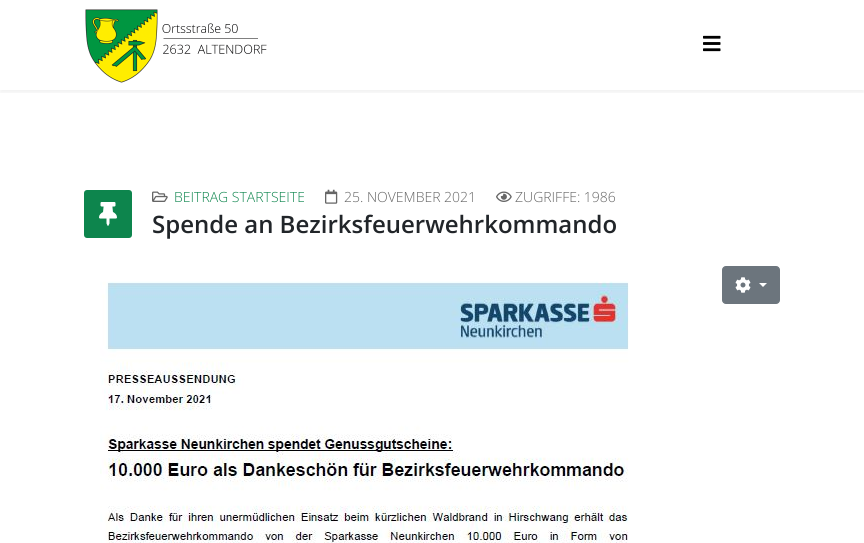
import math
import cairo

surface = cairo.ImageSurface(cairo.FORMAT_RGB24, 864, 543)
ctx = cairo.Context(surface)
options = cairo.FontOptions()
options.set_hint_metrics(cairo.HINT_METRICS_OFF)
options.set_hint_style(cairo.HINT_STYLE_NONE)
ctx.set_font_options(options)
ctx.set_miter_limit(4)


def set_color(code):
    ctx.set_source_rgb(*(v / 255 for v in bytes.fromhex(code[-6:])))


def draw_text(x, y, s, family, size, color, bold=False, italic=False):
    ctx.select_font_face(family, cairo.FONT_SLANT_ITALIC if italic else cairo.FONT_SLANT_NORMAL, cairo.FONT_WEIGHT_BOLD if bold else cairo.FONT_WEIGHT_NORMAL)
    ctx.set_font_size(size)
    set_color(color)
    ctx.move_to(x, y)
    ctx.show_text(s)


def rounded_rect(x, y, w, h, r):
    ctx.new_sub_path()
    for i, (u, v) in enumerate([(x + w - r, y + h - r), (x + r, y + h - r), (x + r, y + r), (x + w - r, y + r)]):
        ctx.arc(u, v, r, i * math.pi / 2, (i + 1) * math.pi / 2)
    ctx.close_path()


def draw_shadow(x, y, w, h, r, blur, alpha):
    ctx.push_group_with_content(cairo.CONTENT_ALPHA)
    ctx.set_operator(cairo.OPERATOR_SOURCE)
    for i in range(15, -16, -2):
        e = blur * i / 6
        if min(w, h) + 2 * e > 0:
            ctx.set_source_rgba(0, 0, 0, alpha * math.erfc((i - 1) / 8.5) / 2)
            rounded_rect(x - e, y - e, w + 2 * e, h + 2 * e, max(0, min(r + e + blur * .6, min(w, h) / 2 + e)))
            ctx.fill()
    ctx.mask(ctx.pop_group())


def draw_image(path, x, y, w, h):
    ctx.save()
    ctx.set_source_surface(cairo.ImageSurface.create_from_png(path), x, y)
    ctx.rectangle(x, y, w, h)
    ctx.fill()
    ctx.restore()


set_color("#ffffff")
ctx.paint()
ctx.save()
ctx.rectangle(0, 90, 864, 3)
ctx.clip()
set_color("#000000")
draw_shadow(0, 3, 864, 90, 0, 1.5, 0.05)
ctx.restore()
draw_image("assets/img1.png", 85, 9, 182, 74)
draw_image("assets/img2.png", 703, 35, 18, 17)
set_color("#0d854d")
rounded_rect(84, 190, 48, 48, 3)
ctx.fill()
draw_image("assets/img3.png", 99, 202, 18, 24)
draw_image("assets/img4.png", 152, 191, 16, 11)
draw_text(174, 202, "BEITRAG STARTSEITE", "Open Sans Light", 14, "#0d854d")
draw_image("assets/img5.png", 325, 189, 13, 15)
draw_text(344, 202, "25. NOVEMBER 2021", "Open Sans Light", 14, "#666666")
draw_image("assets/img6.png", 496, 191, 16, 11)
draw_text(515, 202, "ZUGRIFFE: 1986", "Open Sans Light", 14, "#666666")
draw_text(152, 233, "Spende an Bezirksfeuerwehrkommando", "Open Sans SemiBold", 24, "#212529")
draw_image("assets/img7.png", 100, 281, 529, 262)
set_color("#6c757d")
rounded_rect(722.5, 266.5, 57, 37, 3.5)
ctx.fill_preserve()
ctx.set_line_width(1)
ctx.stroke()
draw_image("assets/img8.png", 735, 277, 16, 16)
set_color("#ffffff")
ctx.new_path()
ctx.move_to(759, 283)
ctx.line_to(767, 283)
ctx.line_to(763, 287)
ctx.close_path()
ctx.fill()
surface.write_to_png("output.png")
